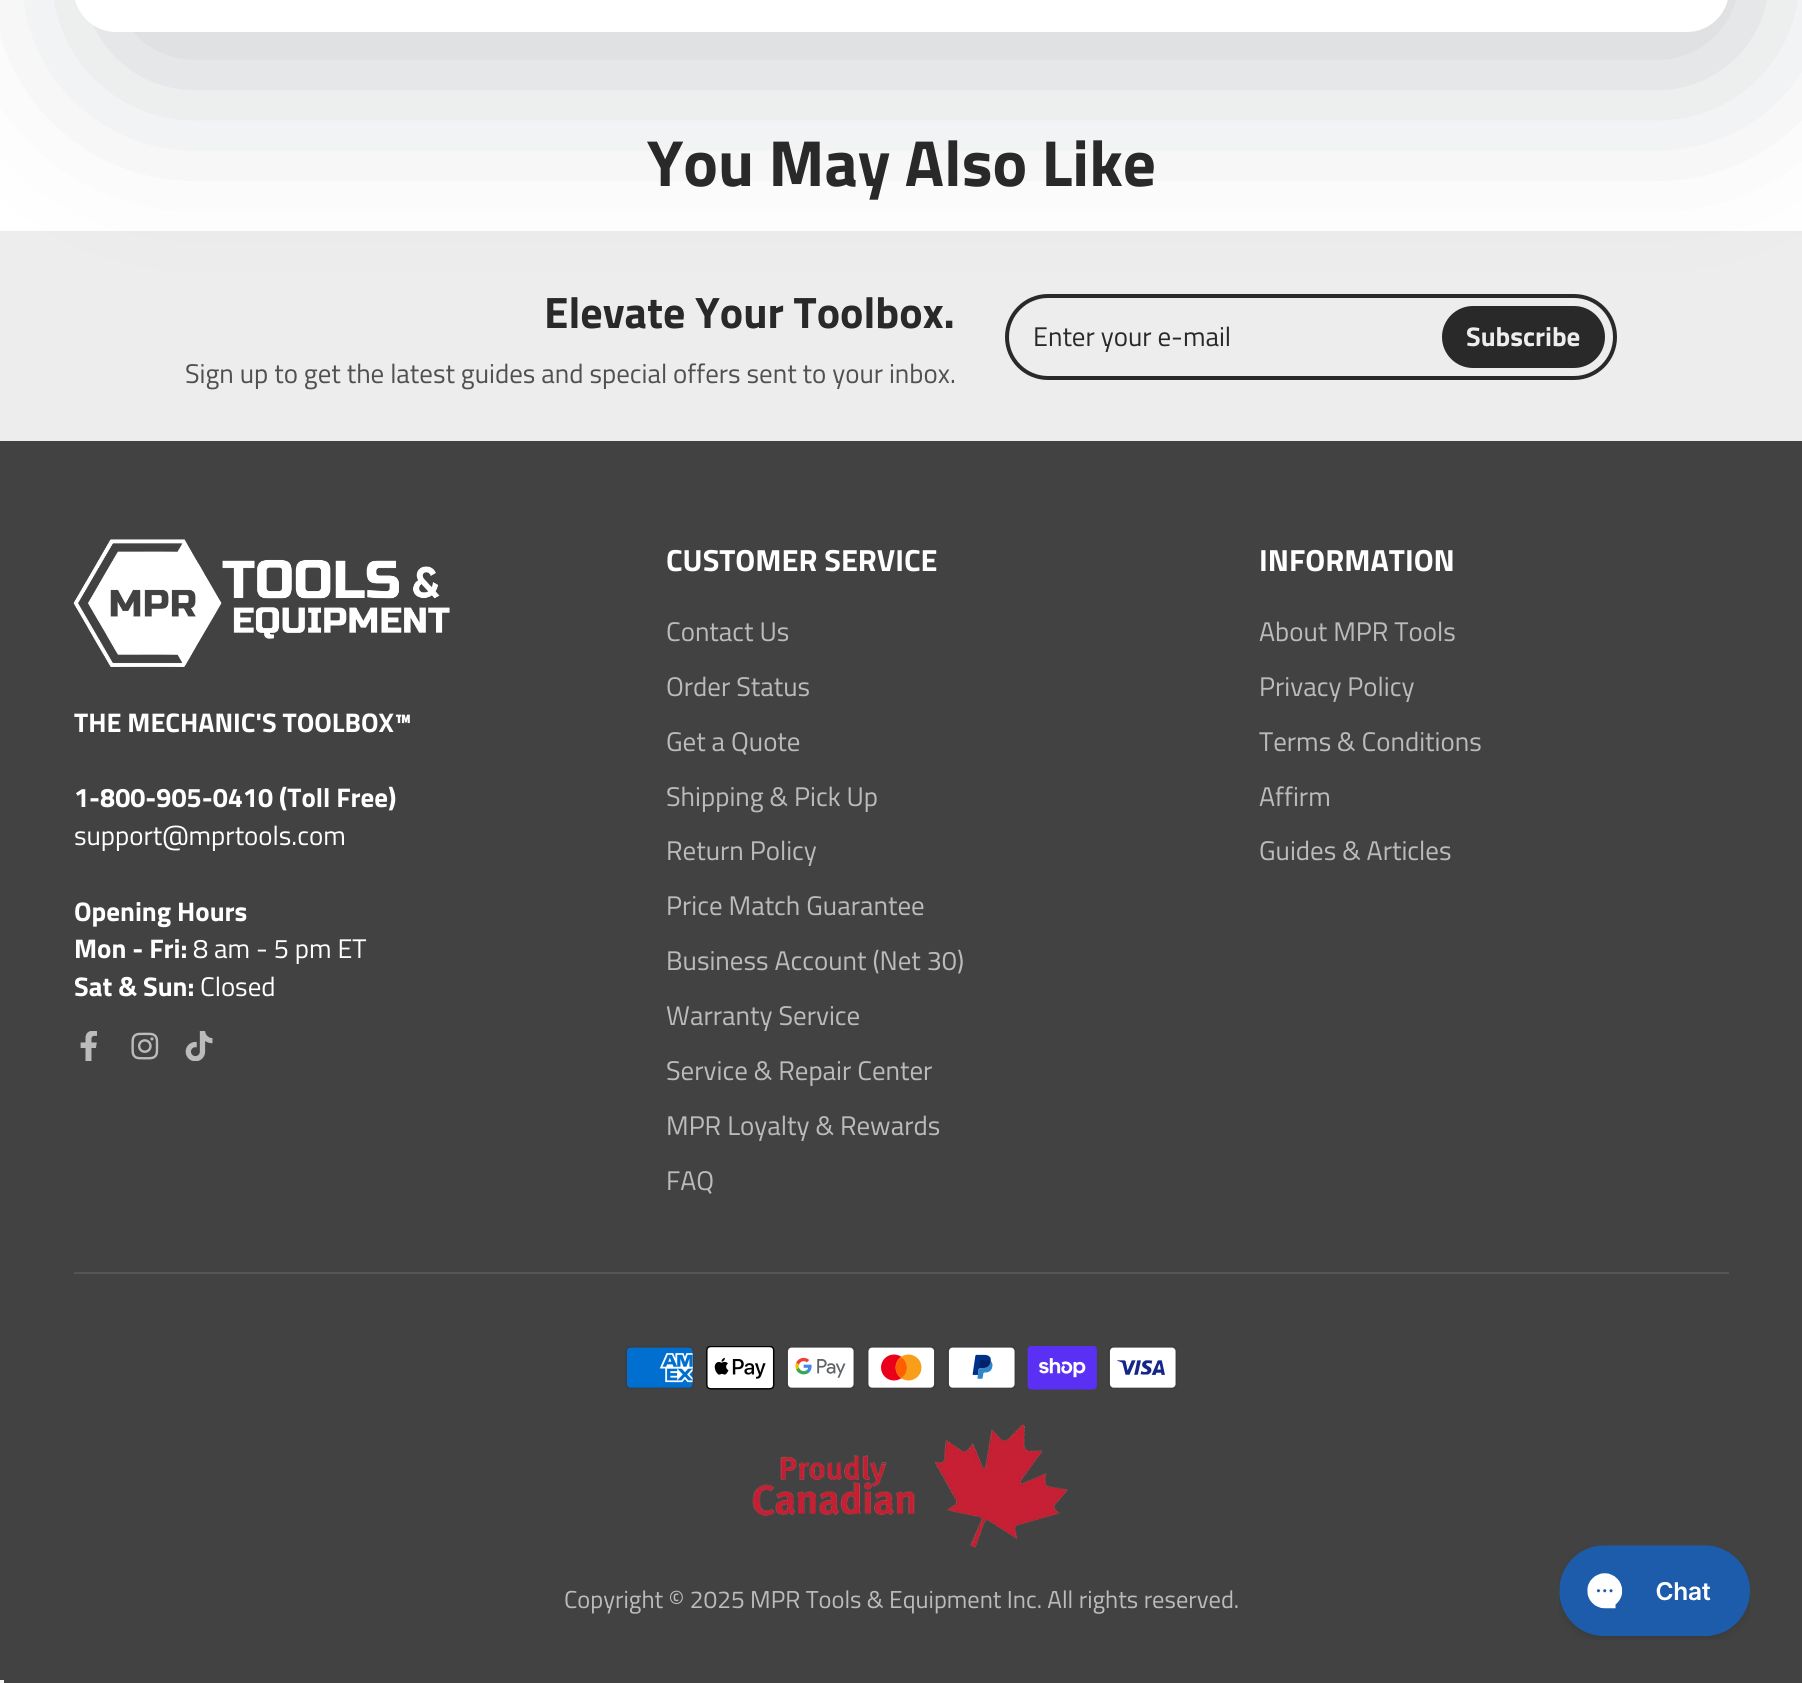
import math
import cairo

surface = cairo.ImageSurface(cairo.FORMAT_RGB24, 1802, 1683)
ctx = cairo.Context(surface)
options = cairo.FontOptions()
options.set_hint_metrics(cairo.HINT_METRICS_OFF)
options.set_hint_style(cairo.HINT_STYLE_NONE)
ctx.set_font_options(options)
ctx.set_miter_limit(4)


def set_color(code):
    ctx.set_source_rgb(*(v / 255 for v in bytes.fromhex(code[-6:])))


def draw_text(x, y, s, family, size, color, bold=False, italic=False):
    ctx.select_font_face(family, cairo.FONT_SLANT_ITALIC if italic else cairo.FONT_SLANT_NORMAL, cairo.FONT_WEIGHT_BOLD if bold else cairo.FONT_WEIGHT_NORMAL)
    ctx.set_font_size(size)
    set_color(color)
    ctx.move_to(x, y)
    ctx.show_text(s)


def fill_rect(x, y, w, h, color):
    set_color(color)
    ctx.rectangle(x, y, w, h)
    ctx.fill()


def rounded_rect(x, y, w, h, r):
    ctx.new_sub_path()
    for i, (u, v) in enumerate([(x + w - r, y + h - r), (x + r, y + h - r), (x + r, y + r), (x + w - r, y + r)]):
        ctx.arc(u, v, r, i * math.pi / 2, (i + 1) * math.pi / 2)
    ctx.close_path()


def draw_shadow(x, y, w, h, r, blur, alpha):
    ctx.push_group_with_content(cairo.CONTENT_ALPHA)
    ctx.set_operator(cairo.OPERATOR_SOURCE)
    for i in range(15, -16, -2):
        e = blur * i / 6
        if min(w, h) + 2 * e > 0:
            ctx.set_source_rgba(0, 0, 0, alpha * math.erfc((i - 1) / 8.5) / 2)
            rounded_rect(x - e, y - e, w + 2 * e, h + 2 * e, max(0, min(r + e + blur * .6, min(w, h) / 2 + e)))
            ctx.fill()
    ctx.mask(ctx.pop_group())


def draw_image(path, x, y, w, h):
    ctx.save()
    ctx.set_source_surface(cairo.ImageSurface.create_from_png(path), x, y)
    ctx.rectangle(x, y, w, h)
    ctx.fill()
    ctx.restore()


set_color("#ffffff")
ctx.paint()
fill_rect(0, 231, 1802, 210, "#ededed")
set_color("#323e48")
draw_shadow(98, -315, 1656, 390, 42, 91, 0.25)
set_color("#ffffff")
ctx.new_path()
ctx.move_to(74, -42)
ctx.line_to(1729, -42)
ctx.line_to(1729, -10)
ctx.curve_to(1729, 13, 1710, 32, 1687, 32)
ctx.line_to(116, 32)
ctx.curve_to(93, 32, 74, 13, 74, -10)
ctx.close_path()
ctx.fill()
draw_text(647, 186, "You May Also Like", "Titillium Web", 65.25, "#292929", bold=True)
draw_text(544, 328, "Elevate Your Toolbox.", "Titillium Web", 44, "#292929", bold=True)
draw_text(185, 383, "Sign up to get the latest guides and special offers sent to your inbox.", "Titillium Web", 26.95, "#505050")
rounded_rect(1007, 296, 608, 82, 41)
set_color("#292929")
ctx.set_line_width(4)
ctx.stroke()
draw_text(1033, 346, "Enter your e-mail", "Titillium Web", 26.95, "#292929")
rounded_rect(1442, 306, 163, 62, 31)
ctx.fill()
draw_text(1466, 346, "Subscribe", "Titillium Web", 26.95, "#ededed", bold=True)
fill_rect(0, 441, 1802, 1242, "#424242")
draw_image("assets/img1.png", 73, 539, 377, 128)
draw_text(74, 732, "THE MECHANIC'S TOOLBOX™", "Titillium Web", 26.95, "#ffffff", bold=True)
draw_text(74, 807, "1-800-905-0410 (Toll Free)", "Titillium Web", 26.95, "#ffffff", bold=True)
draw_text(74, 845, "support@mprtools.com", "Titillium Web", 26.95, "#ffffff")
draw_text(74, 921, "Opening Hours", "Titillium Web", 26.95, "#ffffff", bold=True)
draw_text(74, 958, "Mon - Fri:", "Titillium Web", 26.95, "#ffffff", bold=True)
draw_text(193, 958, "8 am - 5 pm ET", "Titillium Web", 26.95, "#ffffff")
draw_text(74, 996, "Sat & Sun:", "Titillium Web", 26.95, "#ffffff", bold=True)
draw_text(200, 996, "Closed", "Titillium Web", 26.95, "#ffffff")
draw_image("assets/img2.png", 80, 1031, 17, 30)
draw_image("assets/img3.png", 131, 1032, 28, 28)
draw_image("assets/img4.png", 185, 1031, 28, 30)
draw_text(666, 571, "CUSTOMER SERVICE", "Titillium Web", 30.6, "#ffffff", bold=True)
draw_text(666, 641, "Contact Us", "Titillium Web", 26.95, "#bbbbbb")
draw_text(666, 696, "Order Status", "Titillium Web", 26.95, "#bbbbbb")
draw_text(666, 751, "Get a Quote", "Titillium Web", 26.95, "#bbbbbb")
draw_text(666, 806, "Shipping & Pick Up", "Titillium Web", 26.95, "#bbbbbb")
draw_text(666, 860, "Return Policy", "Titillium Web", 26.95, "#bbbbbb")
draw_text(666, 915, "Price Match Guarantee", "Titillium Web", 26.95, "#bbbbbb")
draw_text(666, 970, "Business Account (Net 30)", "Titillium Web", 26.95, "#bbbbbb")
draw_text(666, 1025, "Warranty Service", "Titillium Web", 26.95, "#bbbbbb")
draw_text(666, 1080, "Service & Repair Center", "Titillium Web", 26.95, "#bbbbbb")
draw_text(666, 1135, "MPR Loyalty & Rewards", "Titillium Web", 26.95, "#bbbbbb")
draw_text(666, 1190, "FAQ", "Titillium Web", 26.95, "#bbbbbb")
draw_text(1259, 571, "INFORMATION", "Titillium Web", 30.6, "#ffffff", bold=True)
draw_text(1259, 641, "About MPR Tools", "Titillium Web", 26.95, "#bbbbbb")
draw_text(1259, 696, "Privacy Policy", "Titillium Web", 26.95, "#bbbbbb")
draw_text(1259, 751, "Terms & Conditions", "Titillium Web", 26.95, "#bbbbbb")
draw_text(1259, 806, "Affirm", "Titillium Web", 26.95, "#bbbbbb")
draw_text(1259, 860, "Guides & Articles", "Titillium Web", 26.95, "#bbbbbb")
fill_rect(74, 1272, 1655, 2, "#555555")
draw_image("assets/img5.png", 625, 1346, 69, 43)
draw_image("assets/img6.png", 706, 1346, 69, 44)
draw_image("assets/img7.png", 786, 1346, 69, 43)
draw_image("assets/img8.png", 867, 1346, 69, 43)
draw_image("assets/img9.png", 947, 1346, 69, 43)
draw_image("assets/img10.png", 1027, 1346, 70, 44)
draw_image("assets/img11.png", 1108, 1346, 69, 43)
draw_image("assets/img12.png", 752, 1424, 316, 124)
draw_text(564, 1608, "Copyright © 2025 MPR Tools & Equipment Inc. All rights reserved.", "Titillium Web", 24.5, "#bbbbbb")
draw_image("assets/img13.png", 1559, 1545, 191, 95)
fill_rect(0, 1680, 4, 3, "#f5f5f5")
surface.write_to_png("output.png")
